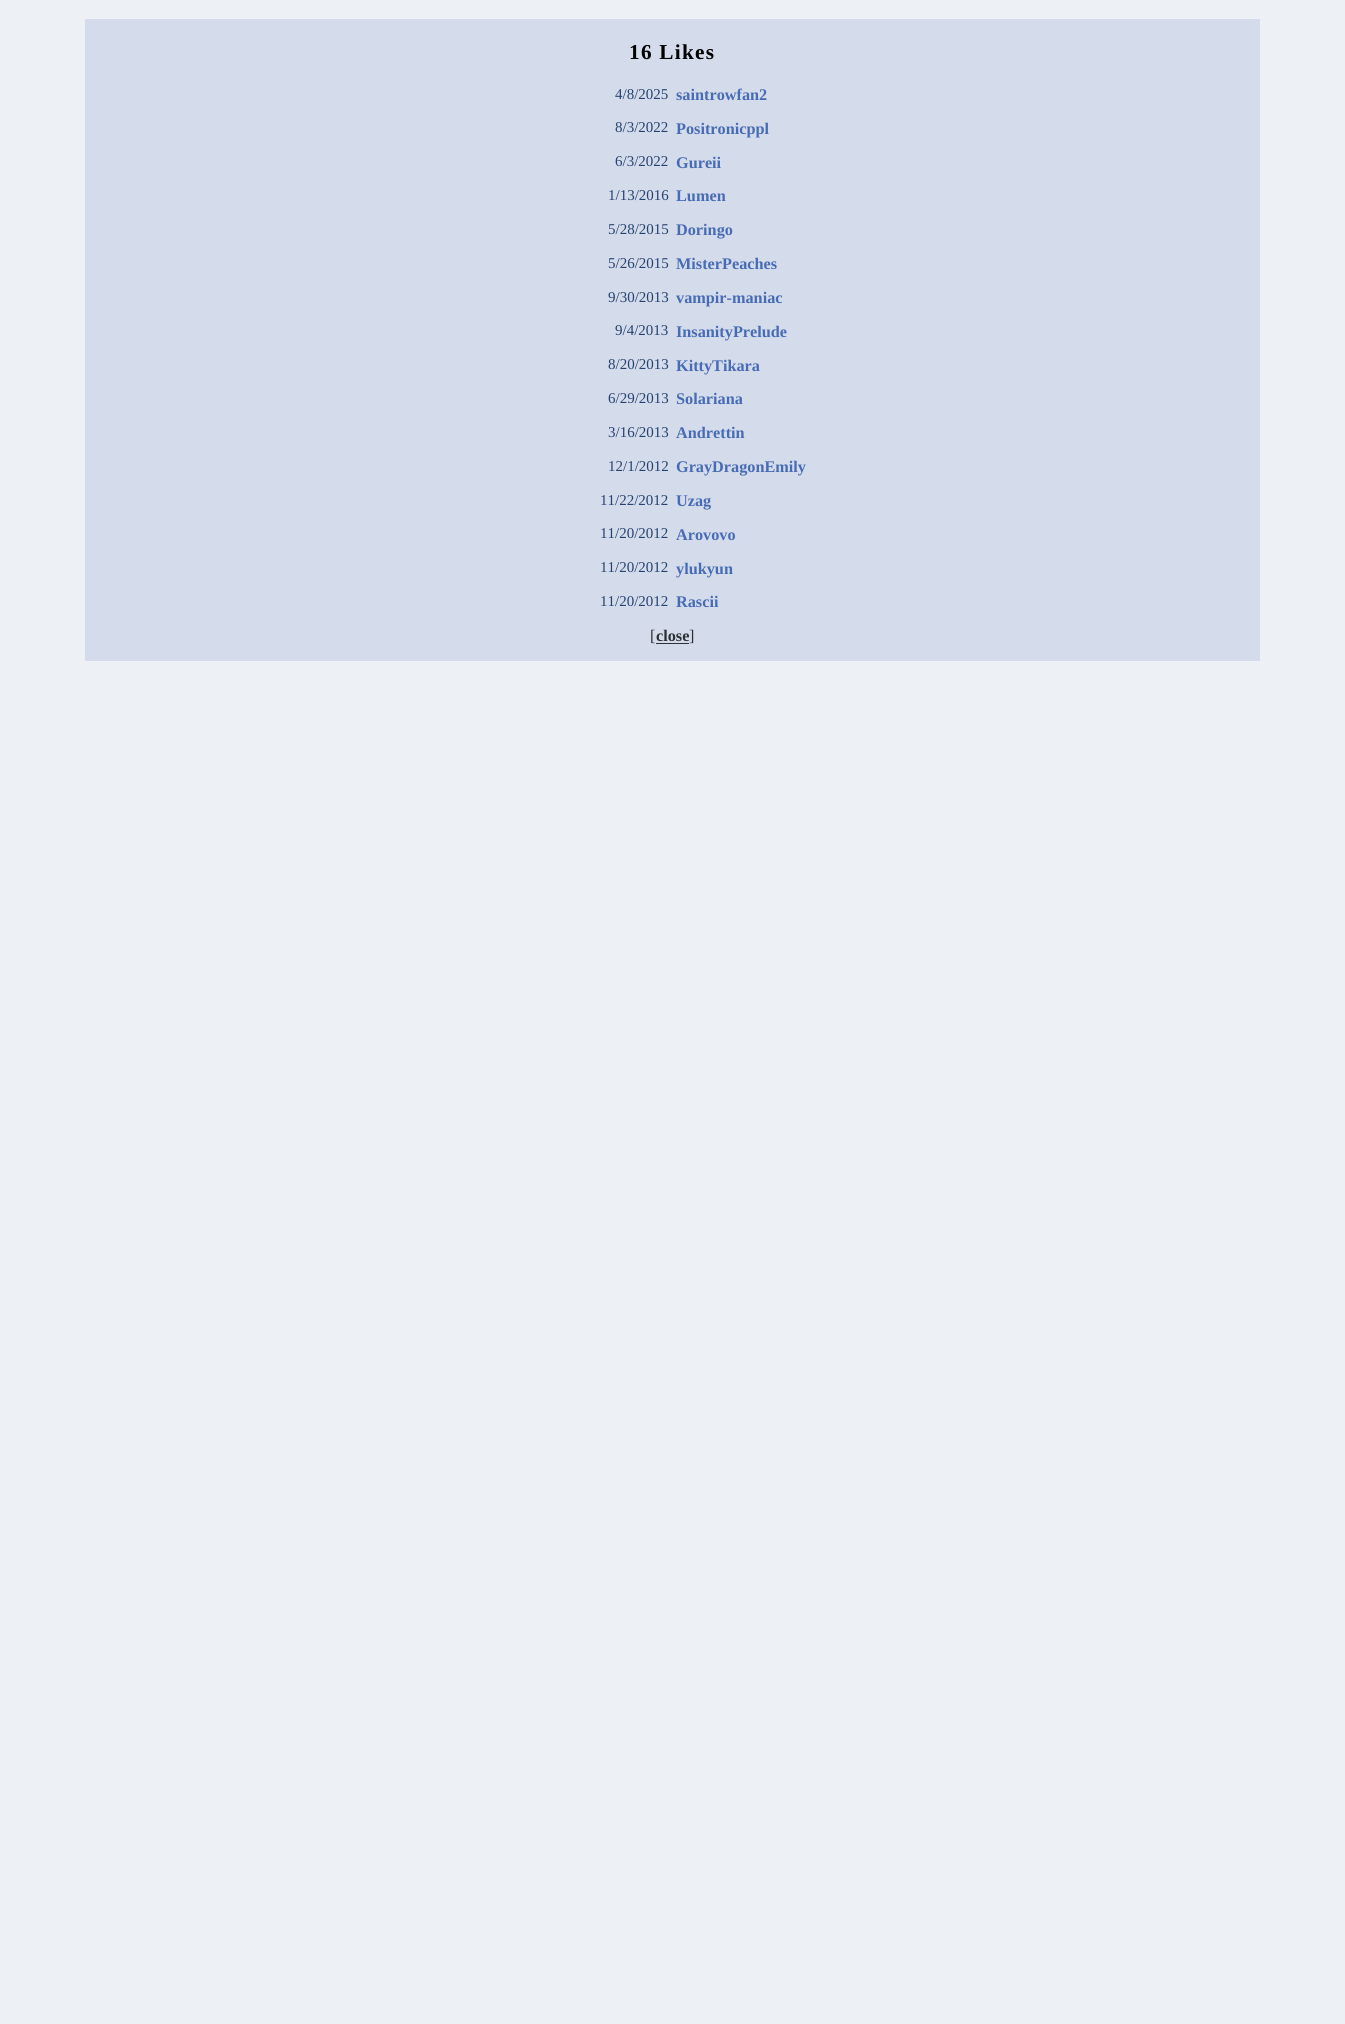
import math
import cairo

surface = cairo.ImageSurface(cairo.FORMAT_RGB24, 1345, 2024)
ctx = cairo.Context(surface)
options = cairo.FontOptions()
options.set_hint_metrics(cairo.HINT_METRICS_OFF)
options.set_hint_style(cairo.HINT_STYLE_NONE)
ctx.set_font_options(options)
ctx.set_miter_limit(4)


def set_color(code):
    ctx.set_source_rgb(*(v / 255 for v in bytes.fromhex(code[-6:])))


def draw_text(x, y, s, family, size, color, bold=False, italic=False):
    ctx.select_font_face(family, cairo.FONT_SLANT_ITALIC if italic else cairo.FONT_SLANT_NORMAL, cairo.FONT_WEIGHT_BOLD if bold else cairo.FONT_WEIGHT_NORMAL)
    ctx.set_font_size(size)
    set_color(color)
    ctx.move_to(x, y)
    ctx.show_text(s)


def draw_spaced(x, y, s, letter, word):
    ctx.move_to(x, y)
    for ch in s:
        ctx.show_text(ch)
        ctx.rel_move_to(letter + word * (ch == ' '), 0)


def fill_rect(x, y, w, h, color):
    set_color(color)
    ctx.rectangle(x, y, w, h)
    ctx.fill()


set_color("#edf0f5")
ctx.paint()
fill_rect(85, 19, 1175, 642, "#d4dceb")
ctx.select_font_face("Liberation Serif", cairo.FONT_SLANT_NORMAL, cairo.FONT_WEIGHT_BOLD)
ctx.set_font_size(21.25)
set_color("#000000")
draw_spaced(629, 59, "16 Likes", 1.25, 0)
draw_text(615, 99, "4/8/2025", "Liberation Serif", 15, "#264270")
draw_text(676, 100, "saintrowfan2", "Liberation Serif", 16.25, "#476bb4", bold=True)
draw_text(615, 132, "8/3/2022", "Liberation Serif", 15, "#264270")
draw_text(676, 134, "Positronicppl", "Liberation Serif", 16.25, "#476bb4", bold=True)
draw_text(615, 166, "6/3/2022", "Liberation Serif", 15, "#264270")
draw_text(676, 168, "Gureii", "Liberation Serif", 16.25, "#476bb4", bold=True)
draw_text(608, 200, "1/13/2016", "Liberation Serif", 15, "#264270")
draw_text(676, 201, "Lumen", "Liberation Serif", 16.25, "#476bb4", bold=True)
draw_text(608, 234, "5/28/2015", "Liberation Serif", 15, "#264270")
draw_text(676, 235, "Doringo", "Liberation Serif", 16.25, "#476bb4", bold=True)
draw_text(608, 268, "5/26/2015", "Liberation Serif", 15, "#264270")
draw_text(676, 269, "MisterPeaches", "Liberation Serif", 16.25, "#476bb4", bold=True)
draw_text(608, 302, "9/30/2013", "Liberation Serif", 15, "#264270")
draw_text(676, 303, "vampir-maniac", "Liberation Serif", 16.25, "#476bb4", bold=True)
draw_text(615, 335, "9/4/2013", "Liberation Serif", 15, "#264270")
draw_text(676, 337, "InsanityPrelude", "Liberation Serif", 16.25, "#476bb4", bold=True)
draw_text(608, 369, "8/20/2013", "Liberation Serif", 15, "#264270")
draw_text(676, 371, "KittyTikara", "Liberation Serif", 16.25, "#476bb4", bold=True)
draw_text(608, 403, "6/29/2013", "Liberation Serif", 15, "#264270")
draw_text(676, 404, "Solariana", "Liberation Serif", 16.25, "#476bb4", bold=True)
draw_text(608, 437, "3/16/2013", "Liberation Serif", 15, "#264270")
draw_text(676, 438, "Andrettin", "Liberation Serif", 16.25, "#476bb4", bold=True)
draw_text(608, 471, "12/1/2012", "Liberation Serif", 15, "#264270")
draw_text(676, 472, "GrayDragonEmily", "Liberation Serif", 16.25, "#476bb4", bold=True)
draw_text(600, 505, "11/22/2012", "Liberation Serif", 15, "#264270")
draw_text(676, 506, "Uzag", "Liberation Serif", 16.25, "#476bb4", bold=True)
draw_text(600, 538, "11/20/2012", "Liberation Serif", 15, "#264270")
draw_text(676, 540, "Arovovo", "Liberation Serif", 16.25, "#476bb4", bold=True)
draw_text(600, 572, "11/20/2012", "Liberation Serif", 15, "#264270")
draw_text(676, 574, "ylukyun", "Liberation Serif", 16.25, "#476bb4", bold=True)
draw_text(600, 606, "11/20/2012", "Liberation Serif", 15, "#264270")
draw_text(676, 607, "Rascii", "Liberation Serif", 16.25, "#476bb4", bold=True)
draw_text(650, 641, "[", "Liberation Serif", 16.25, "#2e3034")
draw_text(656, 641, "close", "Liberation Serif", 16.25, "#2e3034", bold=True)
fill_rect(656, 643, 33, 1, "#2e3034")
draw_text(689, 641, "]", "Liberation Serif", 16.25, "#2e3034")
surface.write_to_png("output.png")
